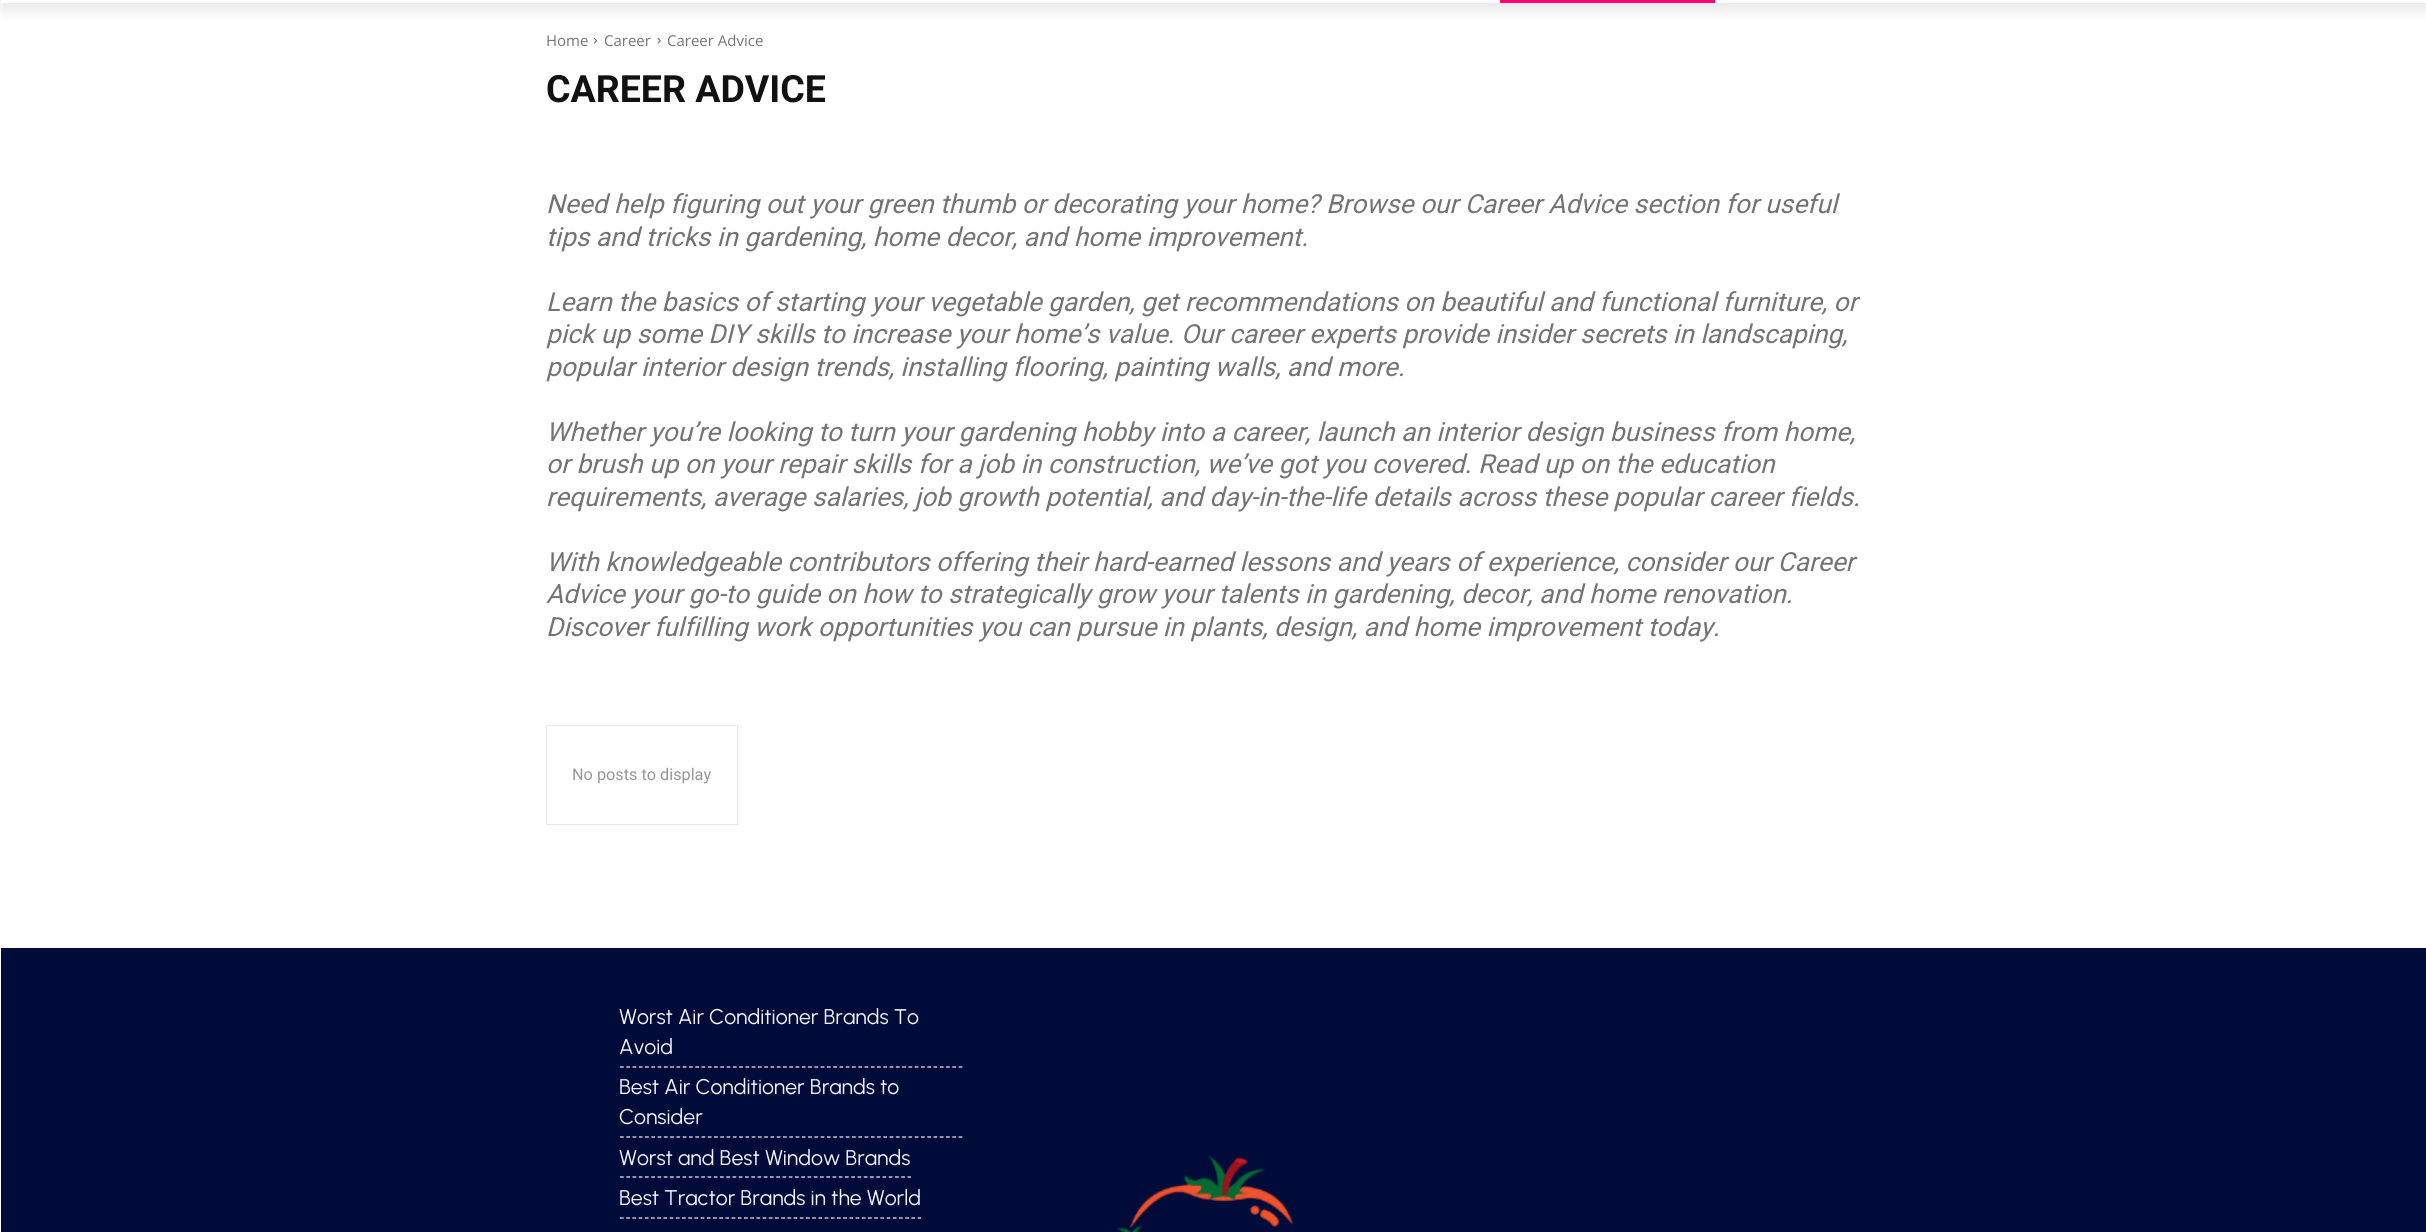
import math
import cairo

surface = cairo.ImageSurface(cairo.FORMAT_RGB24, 2426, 1232)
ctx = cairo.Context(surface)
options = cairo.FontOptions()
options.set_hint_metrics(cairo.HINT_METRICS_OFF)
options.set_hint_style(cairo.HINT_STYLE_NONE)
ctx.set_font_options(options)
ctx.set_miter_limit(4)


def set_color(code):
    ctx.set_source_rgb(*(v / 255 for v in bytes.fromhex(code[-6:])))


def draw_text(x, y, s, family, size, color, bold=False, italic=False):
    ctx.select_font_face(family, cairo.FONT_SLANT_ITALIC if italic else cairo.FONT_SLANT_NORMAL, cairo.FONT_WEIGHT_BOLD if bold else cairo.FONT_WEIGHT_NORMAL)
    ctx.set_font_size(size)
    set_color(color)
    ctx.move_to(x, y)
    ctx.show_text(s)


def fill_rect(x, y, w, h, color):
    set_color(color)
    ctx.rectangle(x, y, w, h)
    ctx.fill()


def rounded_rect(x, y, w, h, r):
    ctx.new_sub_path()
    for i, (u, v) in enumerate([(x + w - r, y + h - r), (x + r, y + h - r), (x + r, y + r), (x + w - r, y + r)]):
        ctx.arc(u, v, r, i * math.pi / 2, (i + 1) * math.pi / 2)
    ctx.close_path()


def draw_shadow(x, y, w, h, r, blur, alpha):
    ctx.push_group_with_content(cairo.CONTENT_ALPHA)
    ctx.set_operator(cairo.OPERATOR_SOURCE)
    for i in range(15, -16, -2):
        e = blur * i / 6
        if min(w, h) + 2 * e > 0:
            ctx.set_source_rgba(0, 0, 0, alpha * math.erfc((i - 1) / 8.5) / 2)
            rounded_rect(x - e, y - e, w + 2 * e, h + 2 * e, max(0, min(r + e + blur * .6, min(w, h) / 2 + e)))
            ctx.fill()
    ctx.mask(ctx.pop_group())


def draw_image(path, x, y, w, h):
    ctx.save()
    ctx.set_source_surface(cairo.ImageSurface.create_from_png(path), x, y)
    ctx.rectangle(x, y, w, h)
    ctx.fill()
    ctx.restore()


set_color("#ffffff")
ctx.paint()
ctx.save()
ctx.set_fill_rule(cairo.FILL_RULE_EVEN_ODD)
ctx.new_path()
ctx.move_to(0, 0)
ctx.line_to(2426, 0)
ctx.line_to(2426, 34)
ctx.line_to(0, 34)
ctx.close_path()
ctx.move_to(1, -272)
ctx.line_to(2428, -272)
ctx.line_to(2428, 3)
ctx.line_to(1, 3)
ctx.close_path()
ctx.clip()
set_color("#000000")
draw_shadow(1, -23, 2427, 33, 0, 7.5, 0.1)
ctx.restore()
fill_rect(1500, 0, 215, 3, "#ff036e")
draw_text(546, 46, "Home", "Open Sans", 15, "#747474")
draw_image("assets/img1.png", 593, 37, 5, 7)
draw_text(604, 46, "Career", "Open Sans", 15, "#747474")
draw_image("assets/img2.png", 657, 37, 4, 7)
draw_text(667, 46, "Career Advice", "Open Sans", 15, "#747474")
draw_text(546, 102, "CAREER ADVICE", "Roboto", 37.5, "#111111", bold=True)
draw_text(546, 213, "Need help figuring out your green thumb or decorating your home? Browse our Career Advice section for useful", "Roboto", 26.25, "#747474", italic=True)
draw_text(546, 246, "tips and tricks in gardening, home decor, and home improvement.", "Roboto", 26.25, "#747474", italic=True)
draw_text(546, 311, "Learn the basics of starting your vegetable garden, get recommendations on beautiful and functional furniture, or", "Roboto", 26.25, "#747474", italic=True)
draw_text(546, 343, "pick up some DIY skills to increase your home’s value. Our career experts provide insider secrets in landscaping,", "Roboto", 26.25, "#747474", italic=True)
draw_text(546, 376, "popular interior design trends, installing flooring, painting walls, and more.", "Roboto", 26.25, "#747474", italic=True)
draw_text(546, 441, "Whether you’re looking to turn your gardening hobby into a career, launch an interior design business from home,", "Roboto", 26.25, "#747474", italic=True)
draw_text(546, 473, "or brush up on your repair skills for a job in construction, we’ve got you covered. Read up on the education", "Roboto", 26.25, "#747474", italic=True)
draw_text(546, 506, "requirements, average salaries, job growth potential, and day-in-the-life details across these popular career fields.", "Roboto", 26.25, "#747474", italic=True)
draw_text(546, 571, "With knowledgeable contributors offering their hard-earned lessons and years of experience, consider our Career", "Roboto", 26.25, "#747474", italic=True)
draw_text(546, 603, "Advice your go-to guide on how to strategically grow your talents in gardening, decor, and home renovation.", "Roboto", 26.25, "#747474", italic=True)
draw_text(546, 636, "Discover fulfilling work opportunities you can pursue in plants, design, and home improvement today.", "Roboto", 26.25, "#747474", italic=True)
ctx.rectangle(546.5, 725.5, 191, 99)
set_color("#e8e8e8")
ctx.set_line_width(1)
ctx.stroke()
draw_text(572, 780, "No posts to display", "Roboto", 16.25, "#979797")
fill_rect(1, 948, 2425, 284, "#000b39")
ctx.new_path()
ctx.move_to(620, 1067)
ctx.line_to(962.5, 1067)
set_color("#f2f2f2")
ctx.set_line_width(1.2)
ctx.set_dash([3.75, 2.52])
ctx.stroke()
draw_text(619, 1024, "Worst Air Conditioner Brands To", "Urbanist", 21.25, "#f3f4fd")
draw_text(619, 1054, "Avoid", "Urbanist", 21.25, "#f3f4fd")
ctx.new_path()
ctx.move_to(620, 1137)
ctx.line_to(962.5, 1137)
set_color("#f2f2f2")
ctx.stroke()
draw_text(619, 1094, "Best Air Conditioner Brands to", "Urbanist", 21.25, "#f3f4fd")
draw_text(619, 1124, "Consider", "Urbanist", 21.25, "#f3f4fd")
ctx.new_path()
ctx.move_to(620, 1177)
ctx.line_to(911, 1177)
set_color("#f2f2f2")
ctx.set_dash([3.75, 2.5])
ctx.stroke()
draw_text(619, 1165, "Worst and Best Window Brands", "Urbanist", 21.25, "#f3f4fd")
ctx.new_path()
ctx.move_to(620, 1218)
ctx.line_to(921, 1218)
set_color("#f2f2f2")
ctx.set_dash([3.75, 2.45])
ctx.stroke()
draw_text(619, 1205, "Best Tractor Brands in the World", "Urbanist", 21.25, "#f3f4fd")
draw_image("assets/img3.png", 1117, 1156, 177, 76)
surface.write_to_png("output.png")
